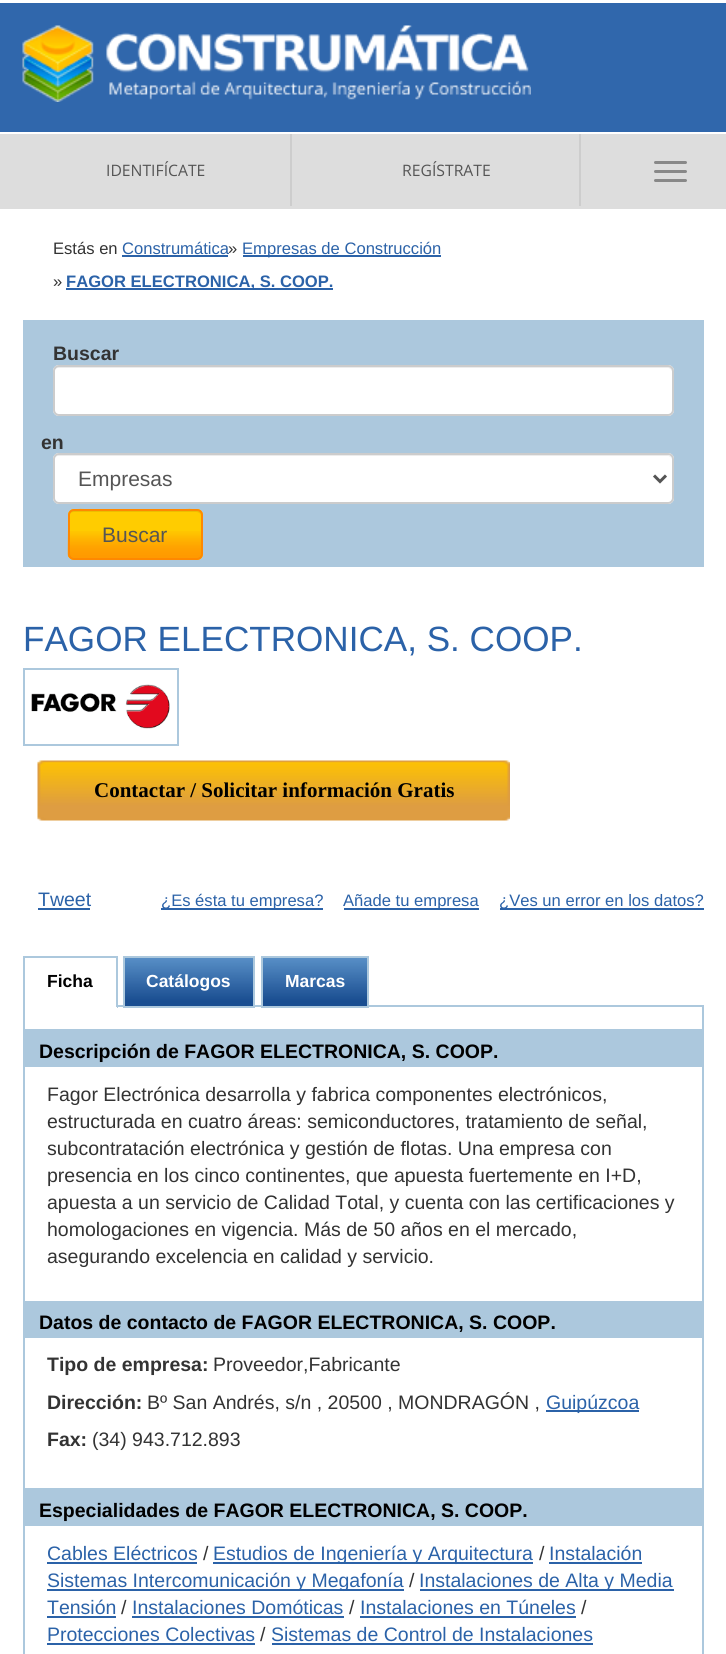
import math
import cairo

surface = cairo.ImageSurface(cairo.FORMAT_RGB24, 726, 1654)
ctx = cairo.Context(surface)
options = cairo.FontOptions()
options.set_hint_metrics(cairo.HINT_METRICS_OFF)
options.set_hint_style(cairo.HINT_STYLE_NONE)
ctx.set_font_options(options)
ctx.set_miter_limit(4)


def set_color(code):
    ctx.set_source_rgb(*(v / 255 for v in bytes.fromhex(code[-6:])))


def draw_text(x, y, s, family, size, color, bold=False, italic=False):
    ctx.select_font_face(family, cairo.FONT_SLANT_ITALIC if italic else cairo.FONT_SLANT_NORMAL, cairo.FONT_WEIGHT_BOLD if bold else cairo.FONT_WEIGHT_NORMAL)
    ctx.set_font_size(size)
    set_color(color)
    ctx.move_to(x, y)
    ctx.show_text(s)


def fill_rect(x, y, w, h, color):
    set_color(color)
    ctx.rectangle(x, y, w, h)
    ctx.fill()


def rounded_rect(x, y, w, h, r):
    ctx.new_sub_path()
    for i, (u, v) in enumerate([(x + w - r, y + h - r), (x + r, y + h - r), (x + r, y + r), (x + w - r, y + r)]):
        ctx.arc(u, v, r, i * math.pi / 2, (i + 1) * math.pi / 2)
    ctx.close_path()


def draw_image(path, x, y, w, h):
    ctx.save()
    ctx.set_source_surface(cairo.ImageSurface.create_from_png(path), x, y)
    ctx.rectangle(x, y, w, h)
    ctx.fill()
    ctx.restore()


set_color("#ffffff")
ctx.paint()
fill_rect(0, 134, 726, 75, "#dddddd")
set_color("#888888")
rounded_rect(654, 161, 33, 3, 1.5)
ctx.fill()
rounded_rect(654, 170, 33, 3, 1.5)
ctx.fill()
rounded_rect(654, 179, 33, 3, 1.5)
ctx.fill()
fill_rect(0, 3, 726, 129, "#3067ac")
draw_image("assets/img1.png", 22, 25, 509, 77)
fill_rect(290, 134, 2, 72, "#cdcdcd")
draw_text(106, 176, "IDENTIFÍCATE", "Open Sans", 15.75, "#555555")
fill_rect(579, 134, 2, 72, "#cdcdcd")
draw_text(402, 176, "REGÍSTRATE", "Open Sans", 15.75, "#555555")
draw_text(53, 254, "Estás en", "Liberation Sans", 16.6, "#333333")
draw_text(122, 254, "Construmática", "Liberation Sans", 16.6, "#2b62a8")
fill_rect(122, 255, 106, 2, "#2b62a8")
draw_text(228, 254, "»", "Liberation Sans", 16.6, "#333333")
fill_rect(243, 255, 198, 2, "#2b62a8")
draw_text(242, 254, "Empresas de Construcción", "Liberation Sans", 16.6, "#2b62a8")
draw_text(53, 287, "»", "Liberation Sans", 16.6, "#333333")
fill_rect(66, 288, 267, 2, "#2b62a8")
draw_text(66, 287, "FAGOR ELECTRONICA, S. COOP.", "Liberation Sans", 16.6, "#2b62a8", bold=True)
fill_rect(23, 320, 681, 247, "#acc8dd")
draw_text(53, 360, "Buscar", "Liberation Sans", 19.5, "#333333", bold=True)
set_color("#ffffff")
rounded_rect(53, 365, 621, 51, 6)
ctx.fill()
set_color("#ececec")
ctx.new_path()
ctx.move_to(58, 368)
ctx.line_to(668, 368)
ctx.curve_to(670, 368, 672, 370, 672, 372)
ctx.line_to(672, 371)
ctx.curve_to(672, 368, 670, 366, 667, 366)
ctx.line_to(59, 366)
ctx.curve_to(56, 366, 54, 368, 54, 371)
ctx.line_to(54, 372)
ctx.curve_to(54, 370, 56, 368, 58, 368)
ctx.close_path()
ctx.fill()
rounded_rect(54, 366, 619, 49, 5)
set_color("#cccccc")
ctx.stroke()
draw_text(41, 449, "en", "Liberation Sans", 19.5, "#333333", bold=True)
set_color("#ffffff")
rounded_rect(53, 453, 621, 51, 6)
ctx.fill()
set_color("#ececec")
ctx.new_path()
ctx.move_to(58, 456)
ctx.line_to(668, 456)
ctx.curve_to(670, 456, 672, 458, 672, 460)
ctx.curve_to(672, 457, 670, 455, 667, 455)
ctx.line_to(59, 455)
ctx.curve_to(56, 455, 54, 457, 54, 460)
ctx.curve_to(54, 458, 56, 456, 58, 456)
ctx.close_path()
ctx.fill()
rounded_rect(54, 454, 619, 49, 5)
set_color("#cccccc")
ctx.stroke()
ctx.new_path()
ctx.move_to(654, 475.5)
ctx.line_to(660, 481.5)
ctx.line_to(666, 475.5)
set_color("#555555")
ctx.set_line_width(3)
ctx.stroke()
draw_text(78, 486, "Empresas", "Liberation Sans", 21, "#555555")
set_color("#ffcc00")
rounded_rect(68, 509, 135, 51, 6)
ctx.fill()
draw_image("assets/img2.png", 67, 531, 136, 27)
set_color("#ecbd00")
ctx.new_path()
ctx.move_to(74, 512)
ctx.line_to(196, 512)
ctx.curve_to(199, 512, 201, 514, 201, 516)
ctx.curve_to(201, 505, 179, 510, 176, 510)
ctx.line_to(94, 510)
ctx.curve_to(91, 510, 69, 505, 69, 516)
ctx.curve_to(69, 514, 71, 512, 74, 512)
ctx.close_path()
ctx.fill()
rounded_rect(69, 510, 133, 49, 5)
set_color("#ff8800")
ctx.set_line_width(2)
ctx.stroke()
draw_text(102, 542, "Buscar", "Liberation Sans", 21, "#555555")
draw_text(23, 651, "FAGOR ELECTRONICA, S. COOP.", "Liberation Sans", 35.1, "#2b62a8")
ctx.rectangle(24, 669, 154, 76)
set_color("#acc8dd")
ctx.stroke()
draw_image("assets/img3.png", 31, 684, 139, 45)
draw_image("assets/img4.png", 37, 760, 473, 61)
draw_text(94, 797, "Contactar / Solicitar información Gratis", "Liberation Serif", 21, "#000000", bold=True)
draw_text(38, 906, "Tweet", "Liberation Sans", 19.5, "#2b62a8")
fill_rect(38, 908, 52, 2, "#2b62a8")
fill_rect(161, 908, 162, 2, "#2b62a8")
draw_text(161, 906, "¿Es ésta tu empresa?", "Liberation Sans", 16.6, "#2b62a8")
fill_rect(344, 908, 135, 2, "#2b62a8")
draw_text(343, 906, "Añade tu empresa", "Liberation Sans", 16.6, "#2b62a8")
fill_rect(500, 908, 204, 2, "#2b62a8")
draw_text(499, 906, "¿Ves un error en los datos?", "Liberation Sans", 16.6, "#2b62a8")
fill_rect(118, 1005, 586, 2, "#acc8dd")
fill_rect(23, 956, 94, 2, "#acc8dd")
fill_rect(116, 956, 2, 52, "#acc8dd")
fill_rect(23, 1007, 2, 647, "#acc8dd")
fill_rect(23, 1007, 94, 1, "#ffffff")
fill_rect(23, 956, 2, 52, "#acc8dd")
draw_text(47, 987, "Ficha", "Liberation Sans", 17.5, "#000000", bold=True)
draw_image("assets/img5.png", 125, 958, 128, 48)
ctx.rectangle(124, 957, 130, 50)
set_color("#acc8dd")
ctx.stroke()
draw_text(146, 987, "Catálogos", "Liberation Sans", 17.5, "#ffffff", bold=True)
draw_image("assets/img6.png", 263, 958, 104, 48)
ctx.rectangle(262, 957, 106, 50)
set_color("#acc8dd")
ctx.stroke()
draw_text(285, 987, "Marcas", "Liberation Sans", 17.5, "#ffffff", bold=True)
fill_rect(702, 1007, 2, 647, "#acc8dd")
fill_rect(25, 1029, 677, 38, "#acc8dd")
draw_text(39, 1058, "Descripción de FAGOR ELECTRONICA, S. COOP.", "Liberation Sans", 19.5, "#000000", bold=True)
draw_text(47, 1101, "Fagor Electrónica desarrolla y fabrica componentes electrónicos,", "Liberation Sans", 19.5, "#333333")
draw_text(47, 1128, "estructurada en cuatro áreas: semiconductores, tratamiento de señal,", "Liberation Sans", 19.5, "#333333")
draw_text(47, 1155, "subcontratación electrónica y gestión de flotas. Una empresa con", "Liberation Sans", 19.5, "#333333")
draw_text(47, 1182, "presencia en los cinco continentes, que apuesta fuertemente en I+D,", "Liberation Sans", 19.5, "#333333")
draw_text(47, 1209, "apuesta a un servicio de Calidad Total, y cuenta con las certificaciones y", "Liberation Sans", 19.5, "#333333")
draw_text(47, 1236, "homologaciones en vigencia. Más de 50 años en el mercado,", "Liberation Sans", 19.5, "#333333")
draw_text(47, 1263, "asegurando excelencia en calidad y servicio.", "Liberation Sans", 19.5, "#333333")
fill_rect(25, 1301, 677, 37, "#acc8dd")
draw_text(39, 1329, "Datos de contacto de FAGOR ELECTRONICA, S. COOP.", "Liberation Sans", 19.5, "#000000", bold=True)
draw_text(47, 1371, "Tipo de empresa:", "Liberation Sans", 19.5, "#333333", bold=True)
draw_text(213, 1371, "Proveedor,Fabricante", "Liberation Sans", 19.5, "#333333")
draw_text(47, 1409, "Dirección:", "Liberation Sans", 19.5, "#333333", bold=True)
draw_text(147, 1409, "Bº San Andrés, s/n , 20500 , MONDRAGÓN ,", "Liberation Sans", 19.5, "#333333")
fill_rect(546, 1410, 93, 2, "#2b62a8")
draw_text(546, 1409, "Guipúzcoa", "Liberation Sans", 19.5, "#2b62a8")
draw_text(47, 1446, "Fax:", "Liberation Sans", 19.5, "#333333", bold=True)
draw_text(92, 1446, "(34) 943.712.893", "Liberation Sans", 19.5, "#333333")
fill_rect(25, 1488, 677, 38, "#acc8dd")
draw_text(39, 1517, "Especialidades de FAGOR ELECTRONICA, S. COOP.", "Liberation Sans", 19.5, "#000000", bold=True)
draw_text(47, 1560, "Cables Eléctricos", "Liberation Sans", 19.5, "#2b62a8")
fill_rect(47, 1562, 150, 2, "#2b62a8")
draw_text(203, 1560, "/", "Liberation Sans", 19.5, "#333333")
fill_rect(213, 1562, 320, 2, "#2b62a8")
draw_text(213, 1560, "Estudios de Ingeniería y Arquitectura", "Liberation Sans", 19.5, "#2b62a8")
draw_text(539, 1560, "/", "Liberation Sans", 19.5, "#333333")
draw_text(549, 1560, "Instalación", "Liberation Sans", 19.5, "#2b62a8")
fill_rect(549, 1562, 93, 2, "#2b62a8")
fill_rect(47, 1589, 357, 2, "#2b62a8")
draw_text(47, 1587, "Sistemas Intercomunicación y Megafonía", "Liberation Sans", 19.5, "#2b62a8")
draw_text(409, 1587, "/", "Liberation Sans", 19.5, "#333333")
fill_rect(420, 1589, 254, 2, "#2b62a8")
draw_text(419, 1587, "Instalaciones de Alta y Media", "Liberation Sans", 19.5, "#2b62a8")
draw_text(47, 1614, "Tensión", "Liberation Sans", 19.5, "#2b62a8")
fill_rect(47, 1616, 69, 2, "#2b62a8")
draw_text(121, 1614, "/", "Liberation Sans", 19.5, "#333333")
draw_text(132, 1614, "Instalaciones Domóticas", "Liberation Sans", 19.5, "#2b62a8")
fill_rect(132, 1616, 212, 2, "#2b62a8")
draw_text(349, 1614, "/", "Liberation Sans", 19.5, "#333333")
draw_text(360, 1614, "Instalaciones en Túneles", "Liberation Sans", 19.5, "#2b62a8")
fill_rect(360, 1616, 216, 2, "#2b62a8")
draw_text(581, 1614, "/", "Liberation Sans", 19.5, "#333333")
draw_text(47, 1641, "Protecciones Colectivas", "Liberation Sans", 19.5, "#2b62a8")
fill_rect(47, 1643, 208, 2, "#2b62a8")
draw_text(260, 1641, "/", "Liberation Sans", 19.5, "#333333")
draw_text(271, 1641, "Sistemas de Control de Instalaciones", "Liberation Sans", 19.5, "#2b62a8")
fill_rect(272, 1643, 321, 2, "#2b62a8")
surface.write_to_png("output.png")
